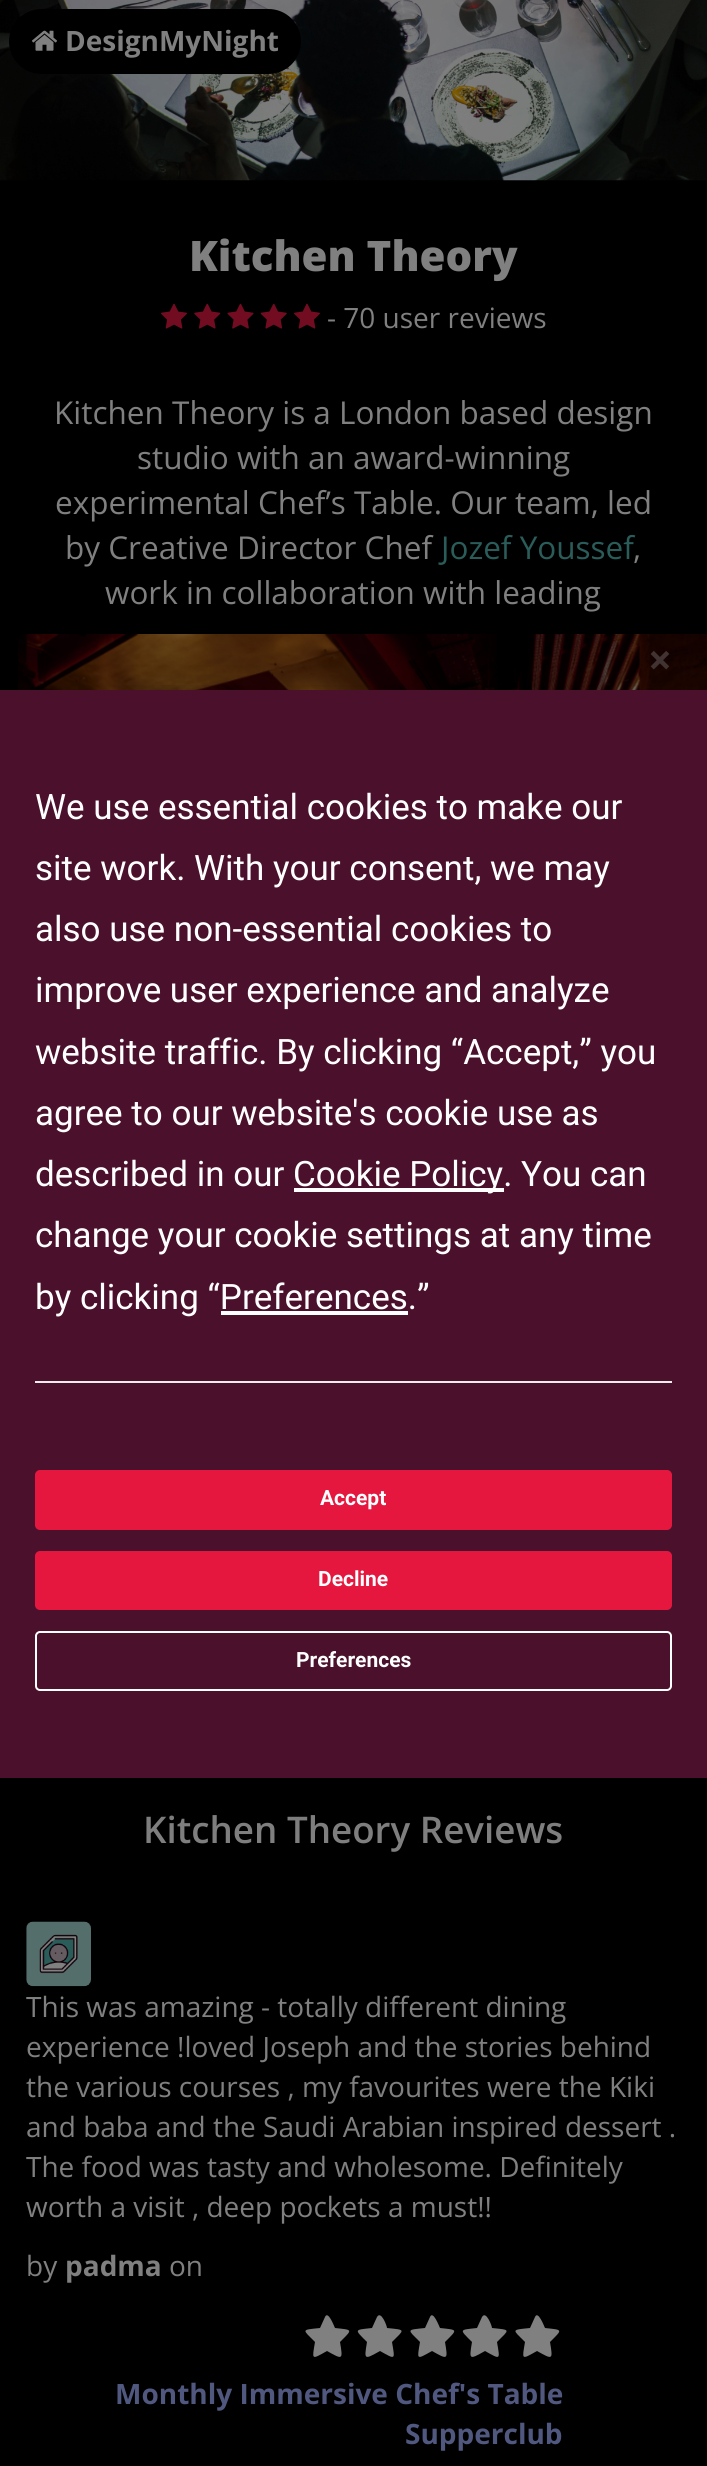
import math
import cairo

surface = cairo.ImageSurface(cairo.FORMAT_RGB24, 707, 2466)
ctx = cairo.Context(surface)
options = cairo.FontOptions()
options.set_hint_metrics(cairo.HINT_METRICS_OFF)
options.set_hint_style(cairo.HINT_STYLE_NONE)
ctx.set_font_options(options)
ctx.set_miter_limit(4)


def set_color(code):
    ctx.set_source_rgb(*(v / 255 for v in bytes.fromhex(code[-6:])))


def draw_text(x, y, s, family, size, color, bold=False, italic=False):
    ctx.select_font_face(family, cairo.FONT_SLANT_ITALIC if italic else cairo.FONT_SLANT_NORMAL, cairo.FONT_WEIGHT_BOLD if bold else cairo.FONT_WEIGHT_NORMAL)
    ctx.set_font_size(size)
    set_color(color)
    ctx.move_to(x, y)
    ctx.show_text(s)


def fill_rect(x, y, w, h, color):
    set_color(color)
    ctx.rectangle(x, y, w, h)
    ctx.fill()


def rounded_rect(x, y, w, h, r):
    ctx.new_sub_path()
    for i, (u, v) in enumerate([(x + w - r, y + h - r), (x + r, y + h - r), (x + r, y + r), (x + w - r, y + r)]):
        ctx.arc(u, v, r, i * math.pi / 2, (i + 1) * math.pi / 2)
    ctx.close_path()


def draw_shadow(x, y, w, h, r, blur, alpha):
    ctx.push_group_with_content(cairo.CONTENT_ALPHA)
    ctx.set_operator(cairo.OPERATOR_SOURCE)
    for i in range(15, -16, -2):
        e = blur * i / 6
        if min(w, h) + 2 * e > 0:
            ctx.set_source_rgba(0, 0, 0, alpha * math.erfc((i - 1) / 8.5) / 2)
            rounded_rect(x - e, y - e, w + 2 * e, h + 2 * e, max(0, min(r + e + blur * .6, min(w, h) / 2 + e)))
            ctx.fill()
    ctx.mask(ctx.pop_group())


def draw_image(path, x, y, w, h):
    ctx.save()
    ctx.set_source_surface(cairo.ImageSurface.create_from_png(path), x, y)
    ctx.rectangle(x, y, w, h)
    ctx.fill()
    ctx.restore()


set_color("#000000")
ctx.paint()
draw_image("assets/img1.png", 0, 0, 707, 181)
set_color("#000000")
rounded_rect(10, 10, 290, 63, 31.5)
ctx.fill_preserve()
ctx.stroke()
draw_image("assets/img2.png", 32, 30, 25, 21)
draw_text(65, 51, "DesignMyNight", "Open Sans", 28, "#808080", bold=True)
draw_text(189, 271, "Kitchen Theory", "Open Sans ExtraBold", 42, "#808080")
draw_image("assets/img3.png", 161, 303, 26, 26)
draw_image("assets/img4.png", 194, 303, 27, 26)
draw_image("assets/img5.png", 227, 303, 27, 26)
draw_image("assets/img6.png", 260, 303, 27, 26)
draw_image("assets/img3.png", 294, 303, 26, 26)
draw_text(327, 328, "- 70 user reviews", "Open Sans", 28, "#808080")
draw_text(54, 424, "Kitchen Theory is a London based design", "Open Sans", 31.5, "#808080")
draw_text(137, 469, "studio with an award-winning", "Open Sans", 31.5, "#808080")
draw_text(55, 514, "experimental Chef’s Table. Our team, led", "Open Sans", 31.5, "#808080")
draw_text(65, 559, "by Creative Director Chef", "Open Sans", 31.5, "#808080")
draw_text(441, 559, "Jozef Youssef", "Open Sans", 31.5, "#2a5d5a")
draw_text(633, 559, ",", "Open Sans", 31.5, "#808080")
draw_text(105, 604, "work in collaboration with leading", "Open Sans", 31.5, "#808080")
draw_text(143, 1843, "Kitchen Theory Reviews", "Open Sans SemiBold", 36.75, "#808080")
draw_image("assets/img7.png", 26, 1921, 65, 66)
draw_text(26, 2017, "This was amazing - totally different dining", "Open Sans", 28, "#808080")
draw_text(26, 2057, "experience !loved Joseph and the stories behind", "Open Sans", 28, "#808080")
draw_text(26, 2097, "the various courses , my favourites were the Kiki", "Open Sans", 28, "#808080")
draw_text(26, 2137, "and baba and the Saudi Arabian inspired dessert .", "Open Sans", 28, "#808080")
draw_text(26, 2177, "The food was tasty and wholesome. Definitely", "Open Sans", 28, "#808080")
draw_text(26, 2217, "worth a visit , deep pockets a must!!", "Open Sans", 28, "#808080")
draw_text(26, 2276, "by", "Open Sans", 28, "#808080")
draw_text(65, 2276, "padma", "Open Sans", 28, "#808080", bold=True)
draw_text(169, 2276, "on", "Open Sans", 28, "#808080")
ctx.new_path()
ctx.move_to(325, 2317)
ctx.line_to(320, 2328)
ctx.curve_to(301, 2330, 302, 2329, 315, 2342)
ctx.curve_to(312, 2360, 311, 2360, 327, 2351)
ctx.curve_to(343, 2360, 343, 2360, 340, 2342)
ctx.curve_to(353, 2329, 353, 2330, 335, 2328)
ctx.curve_to(334, 2326, 328, 2310, 325, 2317)
ctx.close_path()
ctx.fill()
ctx.new_path()
ctx.move_to(377, 2317)
ctx.line_to(372, 2328)
ctx.curve_to(354, 2330, 354, 2329, 367, 2342)
ctx.curve_to(364, 2360, 364, 2360, 380, 2351)
ctx.curve_to(396, 2360, 395, 2360, 392, 2342)
ctx.curve_to(405, 2329, 406, 2330, 387, 2328)
ctx.curve_to(387, 2326, 381, 2310, 377, 2317)
ctx.close_path()
ctx.fill()
ctx.new_path()
ctx.move_to(430, 2317)
ctx.line_to(425, 2328)
ctx.curve_to(406, 2330, 407, 2329, 420, 2342)
ctx.curve_to(417, 2360, 416, 2360, 432, 2351)
ctx.curve_to(448, 2360, 448, 2360, 445, 2342)
ctx.curve_to(458, 2329, 458, 2330, 440, 2328)
ctx.curve_to(439, 2326, 433, 2310, 430, 2317)
ctx.close_path()
ctx.fill()
ctx.new_path()
ctx.move_to(482, 2317)
ctx.line_to(477, 2328)
ctx.curve_to(459, 2330, 459, 2329, 472, 2342)
ctx.curve_to(469, 2360, 469, 2360, 485, 2351)
ctx.curve_to(501, 2360, 500, 2360, 497, 2342)
ctx.curve_to(510, 2329, 511, 2330, 492, 2328)
ctx.curve_to(492, 2326, 486, 2310, 482, 2317)
ctx.close_path()
ctx.fill()
ctx.new_path()
ctx.move_to(535, 2317)
ctx.line_to(530, 2328)
ctx.curve_to(511, 2330, 512, 2329, 525, 2342)
ctx.curve_to(522, 2360, 521, 2360, 537, 2351)
ctx.curve_to(553, 2360, 553, 2360, 550, 2342)
ctx.curve_to(563, 2329, 563, 2330, 545, 2328)
ctx.curve_to(544, 2326, 538, 2310, 535, 2317)
ctx.close_path()
ctx.fill()
draw_text(115, 2404, "Monthly Immersive Chef's Table", "Open Sans", 28, "#505880", bold=True)
draw_text(405, 2444, "Supperclub", "Open Sans", 28, "#505880", bold=True)
draw_image("assets/img8.png", 18, 634, 689, 56)
draw_text(648, 675, "×", "Open Sans", 42, "#443533", bold=True)
set_color("#000000")
draw_shadow(-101, 690, 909, 1088, 9, 30.5, 0.25)
fill_rect(0, 690, 707, 1088, "#4b112c")
draw_text(35, 819, "We use essential cookies to make our", "Roboto", 35, "#ffffff")
draw_text(35, 880, "site work. With your consent, we may", "Roboto", 35, "#ffffff")
draw_text(35, 941, "also use non-essential cookies to", "Roboto", 35, "#ffffff")
draw_text(35, 1002, "improve user experience and analyze", "Roboto", 35, "#ffffff")
draw_text(35, 1064, "website traffic. By clicking “Accept,” you", "Roboto", 35, "#ffffff")
draw_text(35, 1125, "agree to our website's cookie use as", "Roboto", 35, "#ffffff")
draw_text(35, 1186, "described in our", "Roboto", 35, "#ffffff")
fill_rect(294, 1188, 210, 4, "#ffffff")
draw_text(293, 1186, "Cookie Policy. You can", "Roboto", 35, "#ffffff")
draw_text(35, 1247, "change your cookie settings at any time", "Roboto", 35, "#ffffff")
draw_text(35, 1309, "by clicking “Preferences.”", "Roboto", 35, "#ffffff")
fill_rect(221, 1311, 187, 4, "#ffffff")
fill_rect(35, 1381, 637, 2, "#ededef")
set_color("#e5173f")
rounded_rect(36, 1471, 635, 58, 4)
ctx.fill_preserve()
ctx.stroke()
draw_text(320, 1505, "Accept", "Roboto", 21, "#ffffff", bold=True)
set_color("#e5173f")
rounded_rect(36, 1552, 635, 57, 4)
ctx.fill_preserve()
ctx.stroke()
draw_text(318, 1586, "Decline", "Roboto", 21, "#ffffff", bold=True)
rounded_rect(36, 1632, 635, 58, 4)
ctx.stroke()
draw_text(296, 1667, "Preferences", "Roboto", 21, "#ffffff", bold=True)
surface.write_to_png("output.png")
